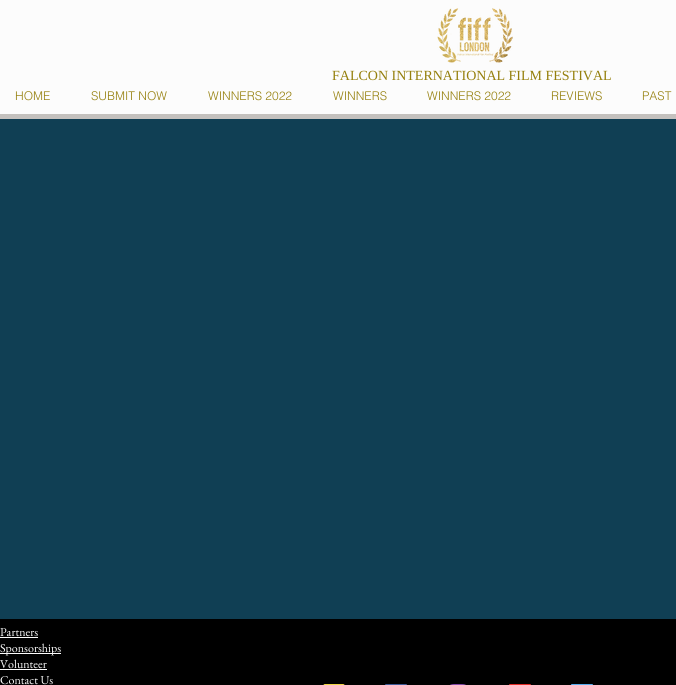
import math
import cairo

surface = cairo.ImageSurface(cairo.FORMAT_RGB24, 676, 685)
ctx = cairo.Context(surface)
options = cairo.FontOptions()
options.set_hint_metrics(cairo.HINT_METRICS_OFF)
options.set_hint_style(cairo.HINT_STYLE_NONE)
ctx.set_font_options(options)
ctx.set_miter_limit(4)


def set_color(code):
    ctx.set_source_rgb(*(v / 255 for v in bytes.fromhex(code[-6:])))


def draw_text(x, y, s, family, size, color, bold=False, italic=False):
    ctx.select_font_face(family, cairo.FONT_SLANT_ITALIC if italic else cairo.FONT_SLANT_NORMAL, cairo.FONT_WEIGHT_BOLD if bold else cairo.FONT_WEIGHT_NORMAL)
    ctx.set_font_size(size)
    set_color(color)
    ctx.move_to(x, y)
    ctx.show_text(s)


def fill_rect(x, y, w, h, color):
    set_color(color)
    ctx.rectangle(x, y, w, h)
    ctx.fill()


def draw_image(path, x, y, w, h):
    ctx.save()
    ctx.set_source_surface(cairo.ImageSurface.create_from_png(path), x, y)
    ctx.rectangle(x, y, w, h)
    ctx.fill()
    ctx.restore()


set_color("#103f54")
ctx.paint()
fill_rect(0, 0, 676, 114, "#fcfcfc")
fill_rect(0, 114, 676, 5, "#c4c1be")
draw_image("assets/img1.png", 437, 8, 76, 55)
draw_text(332, 80, "FALCON INTERNATIONAL FILM FESTIVAL", "Liberation Serif", 14, "#957f0c")
draw_text(15, 100, "HOME", "helvetica Light", 12, "#957f0c")
draw_text(91, 100, "SUBMIT NOW", "helvetica Light", 12, "#957f0c")
draw_text(208, 100, "WINNERS 2022", "helvetica Light", 12, "#957f0c")
draw_text(333, 100, "WINNERS", "helvetica Light", 12, "#957f0c")
draw_text(427, 100, "WINNERS 2022", "helvetica Light", 12, "#957f0c")
draw_text(551, 100, "REVIEWS", "helvetica Light", 12, "#957f0c")
draw_text(642, 100, "PAST", "helvetica Light", 12, "#957f0c")
fill_rect(0, 619, 676, 66, "#000000")
draw_text(0, 636, "Partners", "EB Garamond", 12, "#fcfcfc")
fill_rect(0, 637, 38, 1, "#fcfcfc")
fill_rect(0, 653, 61, 1, "#fcfcfc")
draw_text(0, 652, "Sponsorships", "EB Garamond", 12, "#fcfcfc")
draw_text(0, 668, "Volunteer", "EB Garamond", 12, "#fcfcfc")
fill_rect(0, 669, 47, 1, "#fcfcfc")
draw_text(0, 684, "Contact Us", "EB Garamond", 12, "#fcfcfc")
draw_image("assets/img2.png", 323, 684, 22, 1)
draw_image("assets/img3.png", 385, 684, 22, 1)
draw_image("assets/img4.png", 450, 684, 16, 1)
draw_image("assets/img5.png", 509, 684, 22, 1)
draw_image("assets/img6.png", 571, 684, 22, 1)
surface.write_to_png("output.png")
